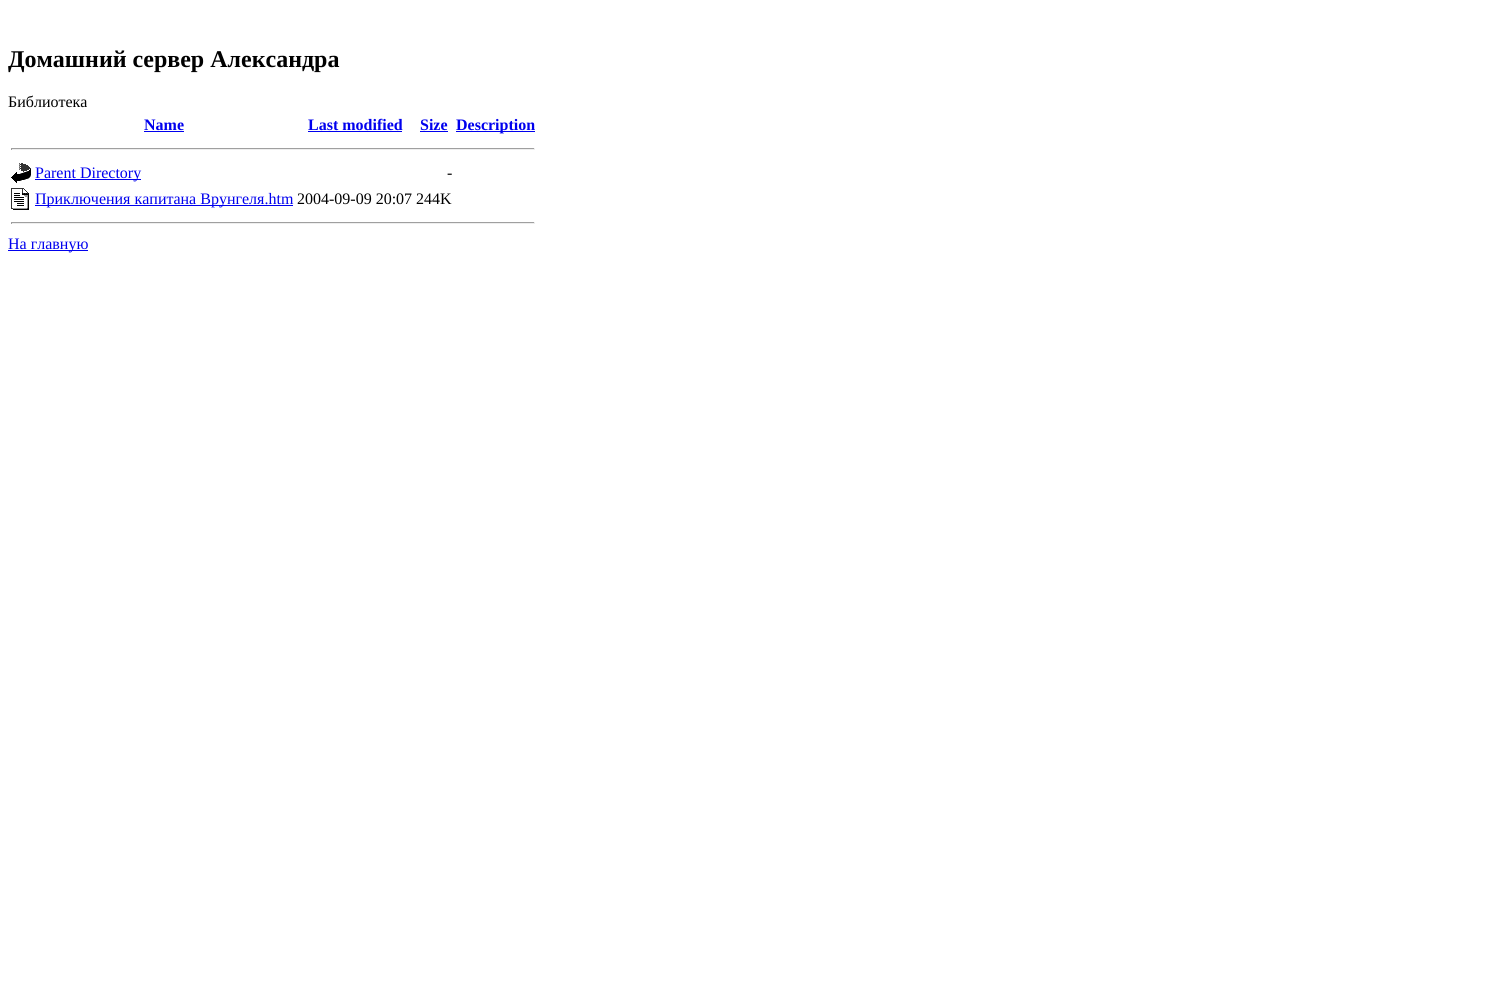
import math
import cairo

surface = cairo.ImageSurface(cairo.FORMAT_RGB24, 1491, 984)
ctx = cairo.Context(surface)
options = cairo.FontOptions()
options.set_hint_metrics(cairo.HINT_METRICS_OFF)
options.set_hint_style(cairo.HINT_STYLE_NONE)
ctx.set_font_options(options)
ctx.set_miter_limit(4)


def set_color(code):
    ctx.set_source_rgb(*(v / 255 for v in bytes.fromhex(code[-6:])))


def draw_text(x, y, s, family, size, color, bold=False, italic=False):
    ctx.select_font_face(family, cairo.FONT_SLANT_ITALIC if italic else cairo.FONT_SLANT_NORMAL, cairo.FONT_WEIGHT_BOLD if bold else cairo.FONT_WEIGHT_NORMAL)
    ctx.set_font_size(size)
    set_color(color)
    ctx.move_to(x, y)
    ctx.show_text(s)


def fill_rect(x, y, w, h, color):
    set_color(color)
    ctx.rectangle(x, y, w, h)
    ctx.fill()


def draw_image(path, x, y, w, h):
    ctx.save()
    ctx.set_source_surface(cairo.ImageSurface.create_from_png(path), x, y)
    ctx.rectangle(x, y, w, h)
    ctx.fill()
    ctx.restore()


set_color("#ffffff")
ctx.paint()
draw_text(8, 67, "Домашний сервер Александра", "Liberation Serif", 24, "#000000", bold=True)
draw_text(8, 107, "Библиотека", "Liberation Serif", 16, "#000000")
draw_text(144, 130, "Name", "Liberation Serif", 16, "#0000ee", bold=True)
fill_rect(144, 131, 40, 1, "#0000ee")
draw_text(308, 130, "Last modified", "Liberation Serif", 16, "#0000ee", bold=True)
fill_rect(308, 131, 94, 1, "#0000ee")
draw_text(420, 130, "Size", "Liberation Serif", 16, "#0000ee", bold=True)
fill_rect(420, 131, 28, 1, "#0000ee")
fill_rect(456, 131, 79, 1, "#0000ee")
draw_text(456, 130, "Description", "Liberation Serif", 16, "#0000ee", bold=True)
fill_rect(11, 148, 524, 1, "#9f9f9f")
fill_rect(534, 148, 1, 2, "#eeeeee")
fill_rect(11, 149, 524, 1, "#eeeeee")
fill_rect(11, 148, 1, 2, "#9f9f9f")
draw_image("assets/img1.png", 11, 163, 20, 20)
fill_rect(35, 179, 106, 1, "#0000ee")
draw_text(35, 178, "Parent Directory", "Liberation Serif", 16, "#0000ee")
draw_text(447, 178, "-", "Liberation Serif", 16, "#000000")
draw_image("assets/img2.png", 11, 188, 18, 22)
fill_rect(35, 205, 258, 1, "#0000ee")
draw_text(35, 204, "Приключения капитана Врунгеля.htm", "Liberation Serif", 16, "#0000ee")
draw_text(297, 204, "2004-09-09 20:07 244K", "Liberation Serif", 16, "#000000")
fill_rect(11, 222, 524, 1, "#9f9f9f")
fill_rect(534, 222, 1, 2, "#eeeeee")
fill_rect(11, 223, 524, 1, "#eeeeee")
fill_rect(11, 222, 1, 2, "#9f9f9f")
fill_rect(8, 250, 80, 1, "#0000ee")
draw_text(8, 249, "На главную", "Liberation Serif", 16, "#0000ee")
surface.write_to_png("output.png")
